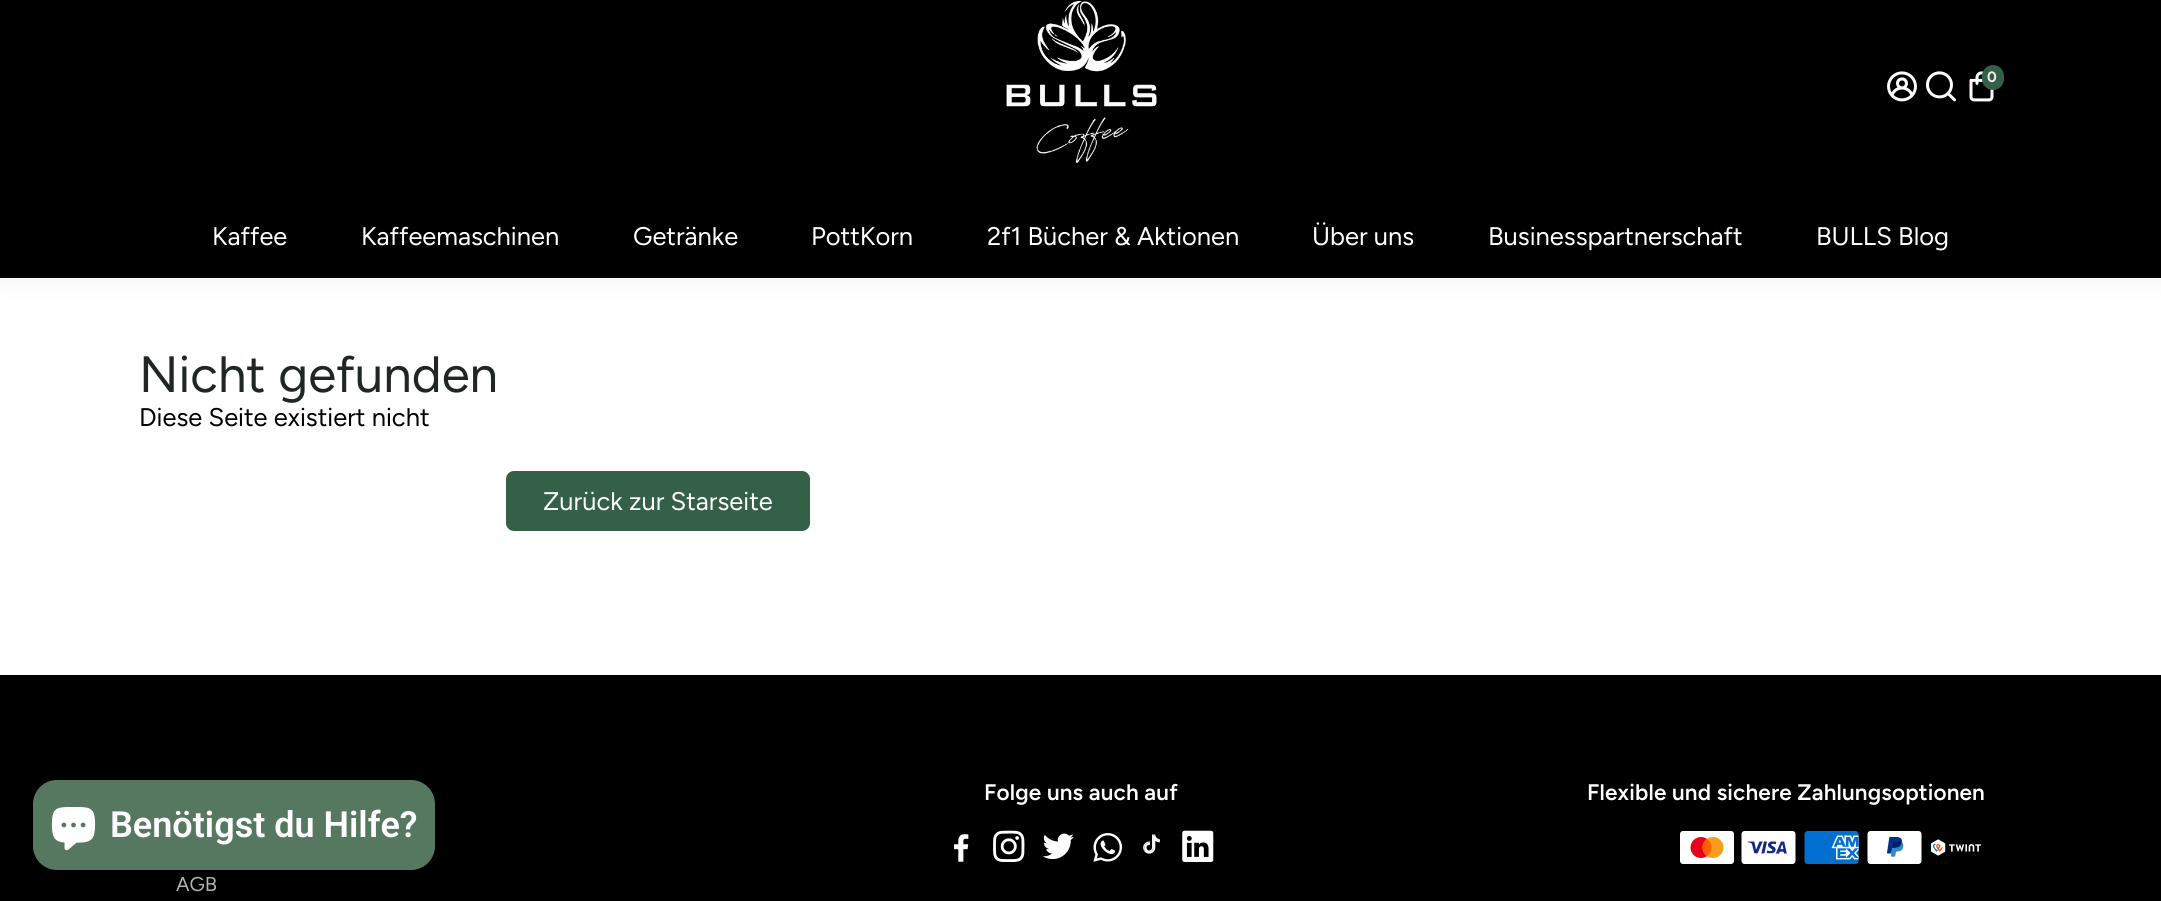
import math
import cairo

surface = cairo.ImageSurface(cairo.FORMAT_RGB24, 2161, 901)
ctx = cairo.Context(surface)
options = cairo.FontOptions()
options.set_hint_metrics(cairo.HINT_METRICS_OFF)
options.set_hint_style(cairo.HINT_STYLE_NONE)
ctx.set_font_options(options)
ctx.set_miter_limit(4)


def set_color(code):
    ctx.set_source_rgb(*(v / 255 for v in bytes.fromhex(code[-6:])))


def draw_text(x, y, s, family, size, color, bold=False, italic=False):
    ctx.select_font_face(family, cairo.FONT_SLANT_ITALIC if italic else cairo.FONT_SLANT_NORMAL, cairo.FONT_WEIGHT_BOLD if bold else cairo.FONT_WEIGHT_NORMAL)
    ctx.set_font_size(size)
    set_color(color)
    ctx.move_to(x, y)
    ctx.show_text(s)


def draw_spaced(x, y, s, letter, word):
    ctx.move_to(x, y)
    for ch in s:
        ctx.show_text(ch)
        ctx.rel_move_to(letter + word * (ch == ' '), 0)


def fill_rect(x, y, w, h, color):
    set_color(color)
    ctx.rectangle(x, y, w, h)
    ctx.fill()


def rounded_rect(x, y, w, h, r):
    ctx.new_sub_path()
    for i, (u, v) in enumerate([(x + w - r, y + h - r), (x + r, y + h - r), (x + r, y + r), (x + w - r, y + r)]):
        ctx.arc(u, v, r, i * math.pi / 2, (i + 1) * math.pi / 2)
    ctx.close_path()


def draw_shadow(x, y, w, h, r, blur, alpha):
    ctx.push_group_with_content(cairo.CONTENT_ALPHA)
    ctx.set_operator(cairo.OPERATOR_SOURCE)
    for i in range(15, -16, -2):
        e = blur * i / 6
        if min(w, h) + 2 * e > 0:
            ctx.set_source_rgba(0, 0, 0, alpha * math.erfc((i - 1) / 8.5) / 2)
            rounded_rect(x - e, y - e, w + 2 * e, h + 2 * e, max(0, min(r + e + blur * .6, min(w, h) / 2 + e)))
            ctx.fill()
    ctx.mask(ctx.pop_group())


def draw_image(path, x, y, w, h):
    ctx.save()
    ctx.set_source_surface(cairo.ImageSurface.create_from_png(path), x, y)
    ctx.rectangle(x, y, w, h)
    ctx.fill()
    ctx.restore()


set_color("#ffffff")
ctx.paint()
set_color("#000000")
draw_shadow(0, -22, 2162, 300, 0, 15, 0.06)
fill_rect(0, 0, 2161, 278, "#000000")
draw_image("assets/img1.png", 1006, 1, 151, 162)
draw_image("assets/img2.png", 1887, 71, 30, 31)
draw_image("assets/img3.png", 1925, 71, 31, 31)
draw_image("assets/img4.png", 1969, 71, 25, 31)
set_color("#336046")
rounded_rect(1982, 65, 22, 25, 11)
ctx.fill()
draw_text(1987, 82, "0", "Figtree", 15, "#efefef", bold=True)
draw_text(212, 245, "Kaffee", "Figtree", 25.5, "#ffffff")
draw_text(361, 245, "Kaffeemaschinen", "Figtree", 25.5, "#ffffff")
draw_text(633, 245, "Getränke", "Figtree", 25.5, "#ffffff")
draw_text(811, 245, "PottKorn", "Figtree", 25.5, "#ffffff")
draw_text(987, 245, "2f1 Bücher & Aktionen", "Figtree", 25.5, "#ffffff")
draw_text(1312, 245, "Über uns", "Figtree", 25.5, "#ffffff")
draw_text(1488, 245, "Businesspartnerschaft", "Figtree", 25.5, "#ffffff")
draw_text(1816, 245, "BULLS Blog", "Figtree", 25.5, "#ffffff")
draw_text(139, 392, "Nicht gefunden", "Figtree", 51, "#202626")
draw_text(139, 426, "Diese Seite existiert nicht", "Figtree", 25.5, "#000000")
set_color("#336046")
rounded_rect(506, 471, 304, 60, 8)
ctx.fill()
draw_text(543, 510, "Zurück zur Starseite", "Figtree", 25.5, "#ffffff")
fill_rect(0, 675, 2161, 226, "#000000")
ctx.select_font_face("Figtree SemiBold")
ctx.set_font_size(22.5)
set_color("#ffffff")
draw_spaced(984, 800, "Folge uns auch auf", 0.15, 0)
draw_image("assets/img5.png", 954, 834, 15, 28)
draw_image("assets/img6.png", 993, 830, 32, 32)
draw_image("assets/img7.png", 1042, 833, 32, 27)
draw_image("assets/img8.png", 1093, 833, 29, 29)
draw_image("assets/img9.png", 1143, 834, 17, 20)
draw_image("assets/img10.png", 1182, 830, 32, 32)
draw_spaced(1587, 800, "Flexible und sichere Zahlungsoptionen", 0.15, 0)
draw_image("assets/img11.png", 1680, 831, 54, 33)
draw_image("assets/img12.png", 1741, 831, 55, 33)
draw_image("assets/img13.png", 1804, 831, 55, 33)
draw_image("assets/img14.png", 1867, 831, 55, 33)
draw_image("assets/img15.png", 1931, 839, 50, 17)
draw_text(176, 891, "AGB", "Figtree", 20, "#b3b3b3")
set_color("#577860")
rounded_rect(33, 780, 402, 90, 24)
ctx.fill()
draw_image("assets/img16.png", 51, 807, 45, 44)
draw_text(110, 837, "Benötigst du Hilfe?", "Roboto SemiBold", 36, "#ffffff")
surface.write_to_png("output.png")
